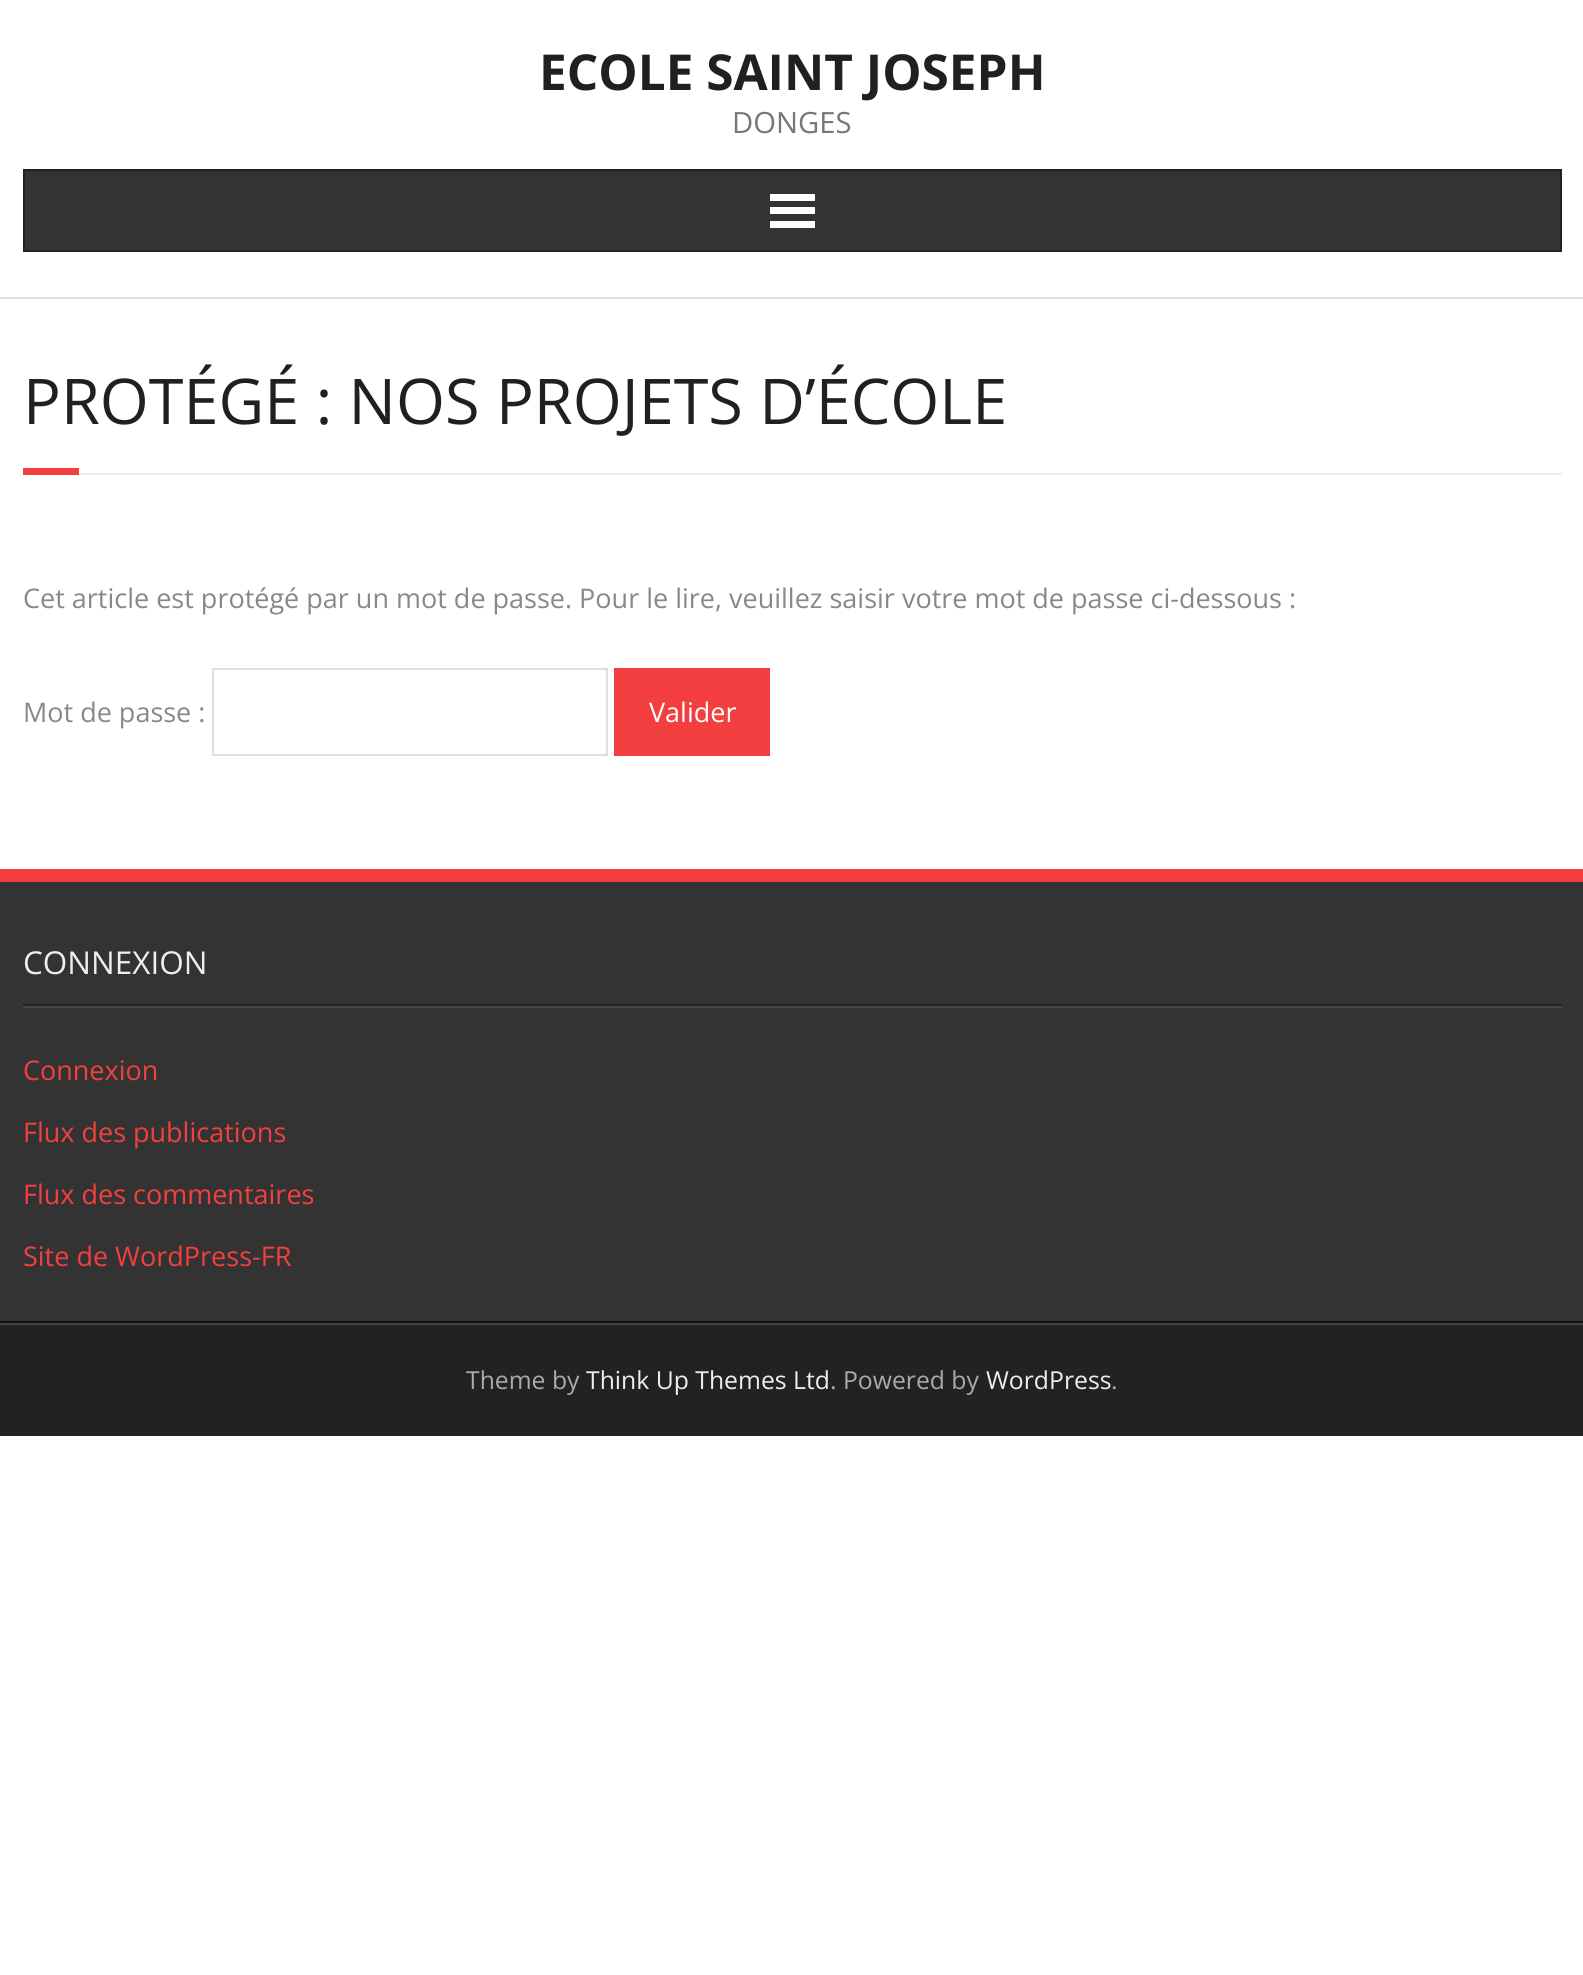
import math
import cairo

surface = cairo.ImageSurface(cairo.FORMAT_RGB24, 1583, 1975)
ctx = cairo.Context(surface)
options = cairo.FontOptions()
options.set_hint_metrics(cairo.HINT_METRICS_OFF)
options.set_hint_style(cairo.HINT_STYLE_NONE)
ctx.set_font_options(options)
ctx.set_miter_limit(4)


def set_color(code):
    ctx.set_source_rgb(*(v / 255 for v in bytes.fromhex(code[-6:])))


def draw_text(x, y, s, family, size, color, bold=False, italic=False):
    ctx.select_font_face(family, cairo.FONT_SLANT_ITALIC if italic else cairo.FONT_SLANT_NORMAL, cairo.FONT_WEIGHT_BOLD if bold else cairo.FONT_WEIGHT_NORMAL)
    ctx.set_font_size(size)
    set_color(color)
    ctx.move_to(x, y)
    ctx.show_text(s)


def fill_rect(x, y, w, h, color):
    set_color(color)
    ctx.rectangle(x, y, w, h)
    ctx.fill()


set_color("#ffffff")
ctx.paint()
fill_rect(0, 297, 1583, 2, "#e0e0e0")
draw_text(539, 90, "ECOLE SAINT JOSEPH", "Open Sans", 49.5, "#202020", bold=True)
draw_text(732, 133, "DONGES", "Open Sans", 29.25, "#777777")
set_color("#333333")
ctx.rectangle(24, 170, 1537, 81)
ctx.fill_preserve()
set_color("#222222")
ctx.stroke()
fill_rect(770, 194, 45, 7, "#ffffff")
fill_rect(770, 207, 45, 7, "#ffffff")
fill_rect(770, 221, 45, 7, "#ffffff")
draw_text(23, 424, "PROTÉGÉ : NOS PROJETS D’ÉCOLE", "Open Sans", 63, "#202020")
fill_rect(23, 468, 56, 7, "#f33f3f")
fill_rect(79, 473, 1483, 2, "#eeeeee")
draw_text(23, 608, "Cet article est protégé par un mot de passe. Pour le lire, veuillez saisir votre mot de passe ci-dessous :", "Open Sans", 27, "#888888")
draw_text(23, 722, "Mot de passe :", "Open Sans", 27, "#888888")
ctx.rectangle(213, 669, 394, 86)
set_color("#e0e0e0")
ctx.stroke()
fill_rect(614, 668, 156, 88, "#f33f3f")
draw_text(649, 722, "Valider", "Open Sans", 27, "#ffffff")
fill_rect(0, 882, 1583, 439, "#333333")
fill_rect(0, 869, 1583, 13, "#f33f3f")
fill_rect(0, 1321, 1583, 2, "#111111")
set_color("#444444")
ctx.new_path()
ctx.move_to(23, 1006)
ctx.line_to(23, 1008)
ctx.line_to(1562, 1008)
ctx.line_to(1562, 941)
ctx.line_to(1562, 1006)
ctx.close_path()
ctx.fill()
fill_rect(23, 1004, 1539, 2, "#222222")
draw_text(23, 974, "CONNEXION", "Open Sans", 31.5, "#eeeeee")
draw_text(23, 1080, "Connexion", "Open Sans", 27, "#f33f3f")
draw_text(23, 1142, "Flux des publications", "Open Sans", 27, "#f33f3f")
draw_text(23, 1204, "Flux des commentaires", "Open Sans", 27, "#f33f3f")
draw_text(23, 1266, "Site de WordPress-FR", "Open Sans", 27, "#f33f3f")
fill_rect(0, 1325, 1583, 111, "#222222")
fill_rect(0, 1323, 1583, 2, "#444444")
draw_text(466, 1389, "Theme by", "Open Sans", 24.75, "#aaaaaa")
draw_text(586, 1389, "Think Up Themes Ltd", "Open Sans", 24.75, "#eeeeee")
draw_text(830, 1389, ". Powered by", "Open Sans", 24.75, "#aaaaaa")
draw_text(986, 1389, "WordPress", "Open Sans", 24.75, "#eeeeee")
draw_text(1111, 1389, ".", "Open Sans", 24.75, "#aaaaaa")
surface.write_to_png("output.png")
